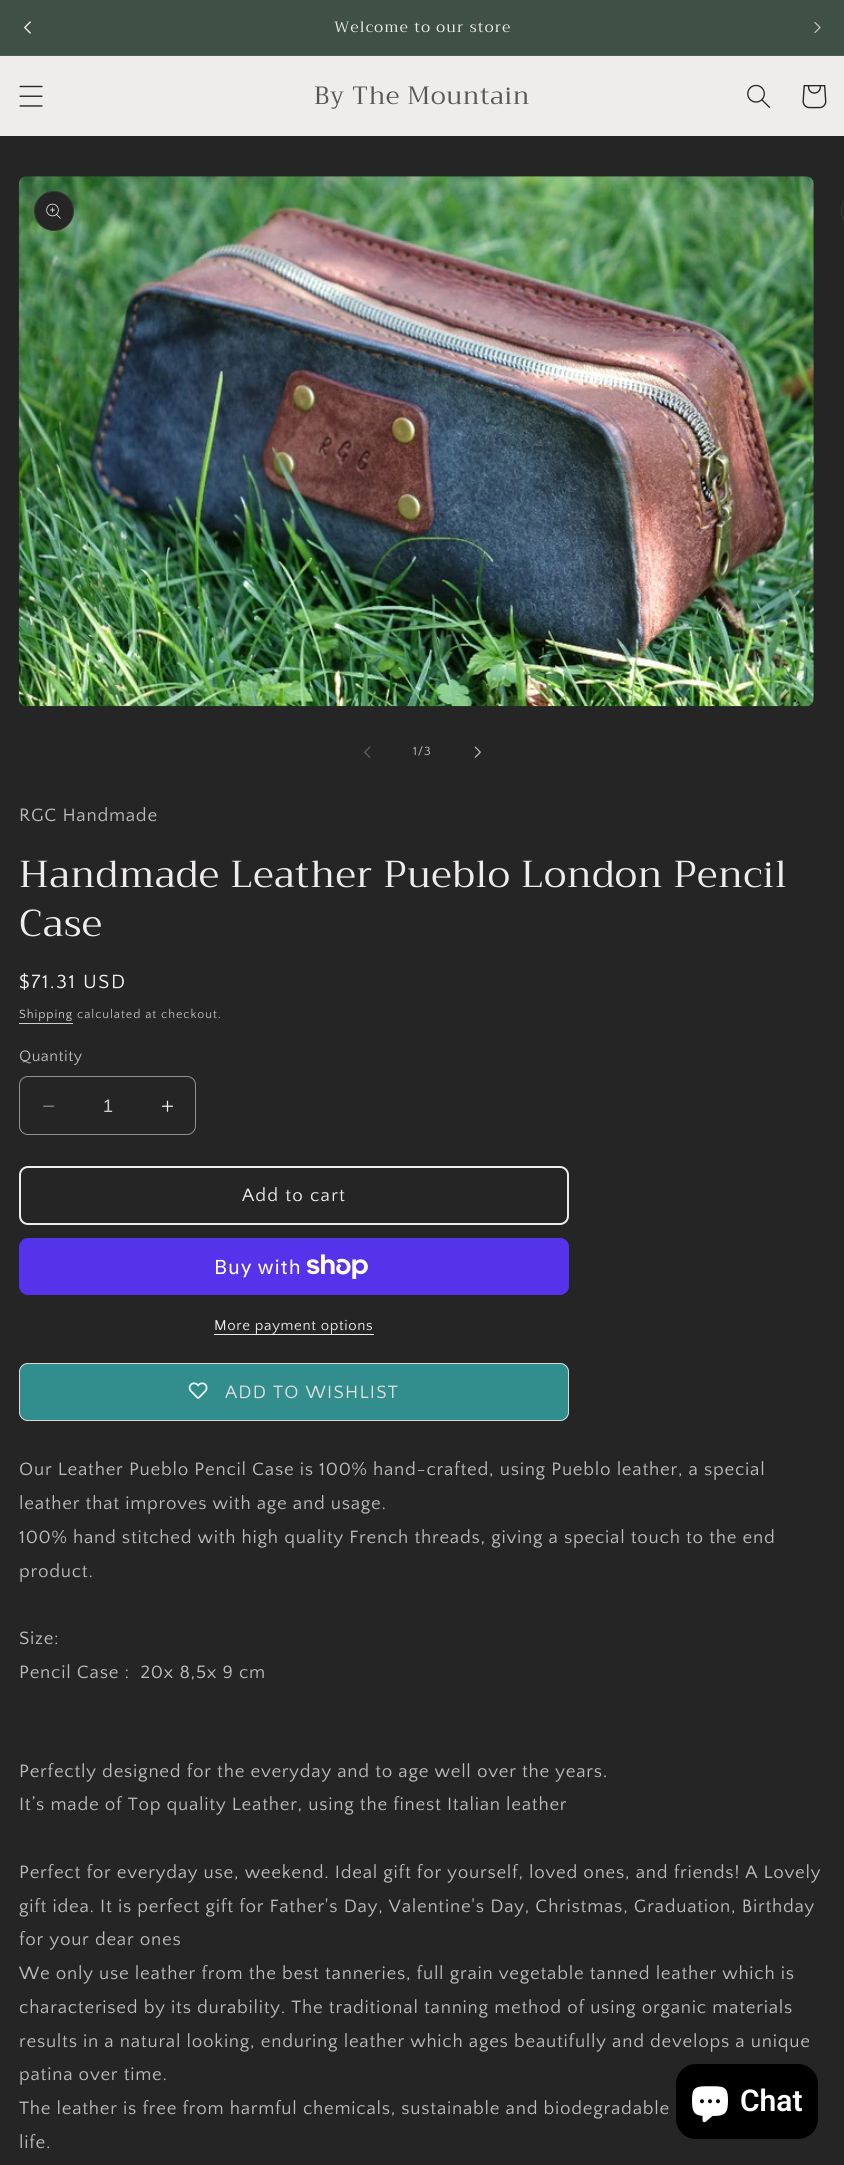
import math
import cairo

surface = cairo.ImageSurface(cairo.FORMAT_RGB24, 844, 2165)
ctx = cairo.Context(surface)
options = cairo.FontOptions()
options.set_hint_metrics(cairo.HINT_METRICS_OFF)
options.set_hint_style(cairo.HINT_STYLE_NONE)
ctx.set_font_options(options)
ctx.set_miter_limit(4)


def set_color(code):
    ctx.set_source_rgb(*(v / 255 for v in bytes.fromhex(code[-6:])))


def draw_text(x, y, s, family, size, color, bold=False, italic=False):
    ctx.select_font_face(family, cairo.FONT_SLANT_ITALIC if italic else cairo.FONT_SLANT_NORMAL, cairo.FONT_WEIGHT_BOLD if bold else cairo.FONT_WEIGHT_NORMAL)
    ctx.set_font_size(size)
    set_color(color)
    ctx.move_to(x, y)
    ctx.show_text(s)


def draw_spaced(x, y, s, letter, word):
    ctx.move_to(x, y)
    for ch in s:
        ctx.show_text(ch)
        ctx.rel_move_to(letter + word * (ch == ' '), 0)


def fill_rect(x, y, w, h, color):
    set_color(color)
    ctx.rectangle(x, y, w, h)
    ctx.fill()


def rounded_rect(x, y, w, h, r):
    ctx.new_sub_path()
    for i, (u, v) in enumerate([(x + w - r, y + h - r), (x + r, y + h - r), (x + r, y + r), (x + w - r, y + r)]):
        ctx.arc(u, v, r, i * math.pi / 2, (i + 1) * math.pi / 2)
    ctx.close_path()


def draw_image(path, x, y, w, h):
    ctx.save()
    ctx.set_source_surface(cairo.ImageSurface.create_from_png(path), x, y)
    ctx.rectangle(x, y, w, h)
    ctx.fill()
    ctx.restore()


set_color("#252525")
ctx.paint()
fill_rect(0, 0, 844, 55, "#3f5147")
fill_rect(0, 55, 844, 1, "#4d5d54")
draw_image("assets/img1.png", 24, 21, 7, 13)
ctx.select_font_face("Trirong")
ctx.set_font_size(15)
set_color("#efecec")
draw_spaced(334, 32, "Welcome to our store", 1.25, 0)
draw_image("assets/img2.png", 814, 22, 7, 11)
fill_rect(0, 56, 844, 80, "#efecec")
draw_image("assets/img3.png", 19, 85, 24, 22)
ctx.set_font_size(25)
set_color("#585757")
draw_spaced(314, 104, "By The Mountain", 0.75, 0)
draw_image("assets/img4.png", 747, 84, 23, 24)
draw_image("assets/img5.png", 802, 85, 25, 24)
draw_image("assets/img6.png", 18, 176, 796, 531)
set_color("#252525")
ctx.arc(54, 211, 20, 0, 2 * math.pi)
ctx.fill()
ctx.arc(54, 211, 19.5, 0, 2 * math.pi)
ctx.set_source_rgba(0.937, 0.925, 0.925, 0.1)
ctx.set_line_width(1)
ctx.stroke()
draw_image("assets/img7.png", 46, 203, 15, 16)
rounded_rect(841.5, 191.5, 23, 39, 19.5)
set_color("#393939")
ctx.stroke()
draw_image("assets/img8.png", 364, 746, 7, 12)
ctx.select_font_face("Quattrocento Sans")
ctx.set_font_size(12.5)
set_color("#bdbaba")
draw_spaced(413, 755, "1/3", 0.9, 0)
draw_image("assets/img9.png", 474, 746, 7, 12)
ctx.set_font_size(18.75)
draw_spaced(19, 821, "RGC Handmade", 0.75, 0)
ctx.select_font_face("Trirong")
ctx.set_font_size(37.5)
set_color("#efecec")
draw_spaced(19, 887, "Handmade Leather Pueblo London Pencil", 0.75, 0)
draw_spaced(19, 936, "Case", 0.75, 0)
ctx.select_font_face("Quattrocento Sans")
ctx.set_font_size(20)
draw_spaced(19, 988, "$71.31 USD", 1.6, 0)
ctx.set_font_size(12.5)
set_color("#d1cece")
draw_spaced(19, 1018, "Shipping", 0.9, 0)
fill_rect(19, 1023, 54, 1, "#d1cece")
set_color("#bdbaba")
draw_spaced(77, 1018, "calculated at checkout.", 0.9, 0)
ctx.set_font_size(16)
draw_spaced(19, 1061, "Quantity", 0.5, 0)
draw_image("assets/img10.png", 43, 1105, 12, 2)
draw_image("assets/img11.png", 161, 1100, 13, 12)
rounded_rect(19.5, 1076.5, 176, 58, 8.5)
set_color("#949292")
ctx.stroke()
draw_text(103, 1112, "1", "Liberation Sans", 18, "#d1cece")
rounded_rect(20, 1167, 548, 57, 8)
set_color("#efecec")
ctx.set_line_width(2)
ctx.stroke()
ctx.select_font_face("Quattrocento Sans")
ctx.set_font_size(18.75)
draw_spaced(242, 1201, "Add to cart", 1.25, 0)
set_color("#5433eb")
rounded_rect(19, 1238, 550, 57, 9)
ctx.fill()
ctx.select_font_face("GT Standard")
ctx.set_font_size(20)
set_color("#ffffff")
draw_spaced(214, 1274, "Buy with", 0.75, 0)
draw_image("assets/img12.png", 306, 1254, 62, 25)
ctx.select_font_face("Quattrocento Sans")
ctx.set_font_size(15)
set_color("#efecec")
draw_spaced(214, 1330, "More payment options", 0.6, 0)
fill_rect(214, 1334, 160, 1, "#efecec")
set_color("#328d8d")
rounded_rect(19, 1363, 550, 58, 9)
ctx.fill()
draw_image("assets/img13.png", 188, 1382, 20, 17)
rounded_rect(19.5, 1363.5, 549, 57, 8.5)
set_color("#dbd8d8")
ctx.set_line_width(1)
ctx.stroke()
ctx.set_font_size(18.75)
set_color("#e2dddd")
draw_spaced(225, 1398, "ADD TO WISHLIST", 1.25, 0)
set_color("#bdbaba")
draw_spaced(19, 1475, "Our Leather Pueblo Pencil Case is 100% hand-crafted, using Pueblo leather, a special", 0.75, 0)
draw_spaced(19, 1509, "leather that improves with age and usage.", 0.75, 0)
draw_spaced(19, 1543, "100% hand stitched with high quality French threads, giving a special touch to the end", 0.75, 0)
draw_spaced(19, 1577, "product.", 0.75, 0)
draw_spaced(19, 1644, "Size:", 0.75, 0)
draw_spaced(19, 1678, "Pencil Case :  20x 8,5x 9 cm", 0.75, 0)
draw_spaced(19, 1777, "Perfectly designed for the everyday and to age well over the years.", 0.75, 0)
draw_spaced(19, 1810, "It’s made of Top quality Leather, using the finest Italian leather", 0.75, 0)
draw_spaced(19, 1878, "Perfect for everyday use, weekend. Ideal gift for yourself, loved ones, and friends! A Lovely", 0.75, 0)
draw_spaced(19, 1912, "gift idea. It is perfect gift for Father's Day, Valentine's Day, Christmas, Graduation, Birthday", 0.75, 0)
draw_spaced(19, 1945, "for your dear ones", 0.75, 0)
draw_spaced(19, 1979, "We only use leather from the best tanneries, full grain vegetable tanned leather which is", 0.75, 0)
draw_spaced(19, 2013, "characterised by its durability. The traditional tanning method of using organic materials", 0.75, 0)
draw_spaced(19, 2047, "results in a natural looking, enduring leather which ages beautifully and develops a unique", 0.75, 0)
draw_spaced(19, 2080, "patina over time.", 0.75, 0)
draw_spaced(19, 2114, "The leather is free from harmful chemicals, sustainable and biodegradable", 0.75, 0)
draw_spaced(19, 2148, "life.", 0.75, 0)
set_color("#000000")
rounded_rect(676, 2064, 142, 75, 20)
ctx.fill()
draw_image("assets/img14.png", 692, 2086, 36, 37)
draw_text(740, 2111, "Chat", "Roboto SemiBold", 30, "#ffffff")
surface.write_to_png("output.png")
